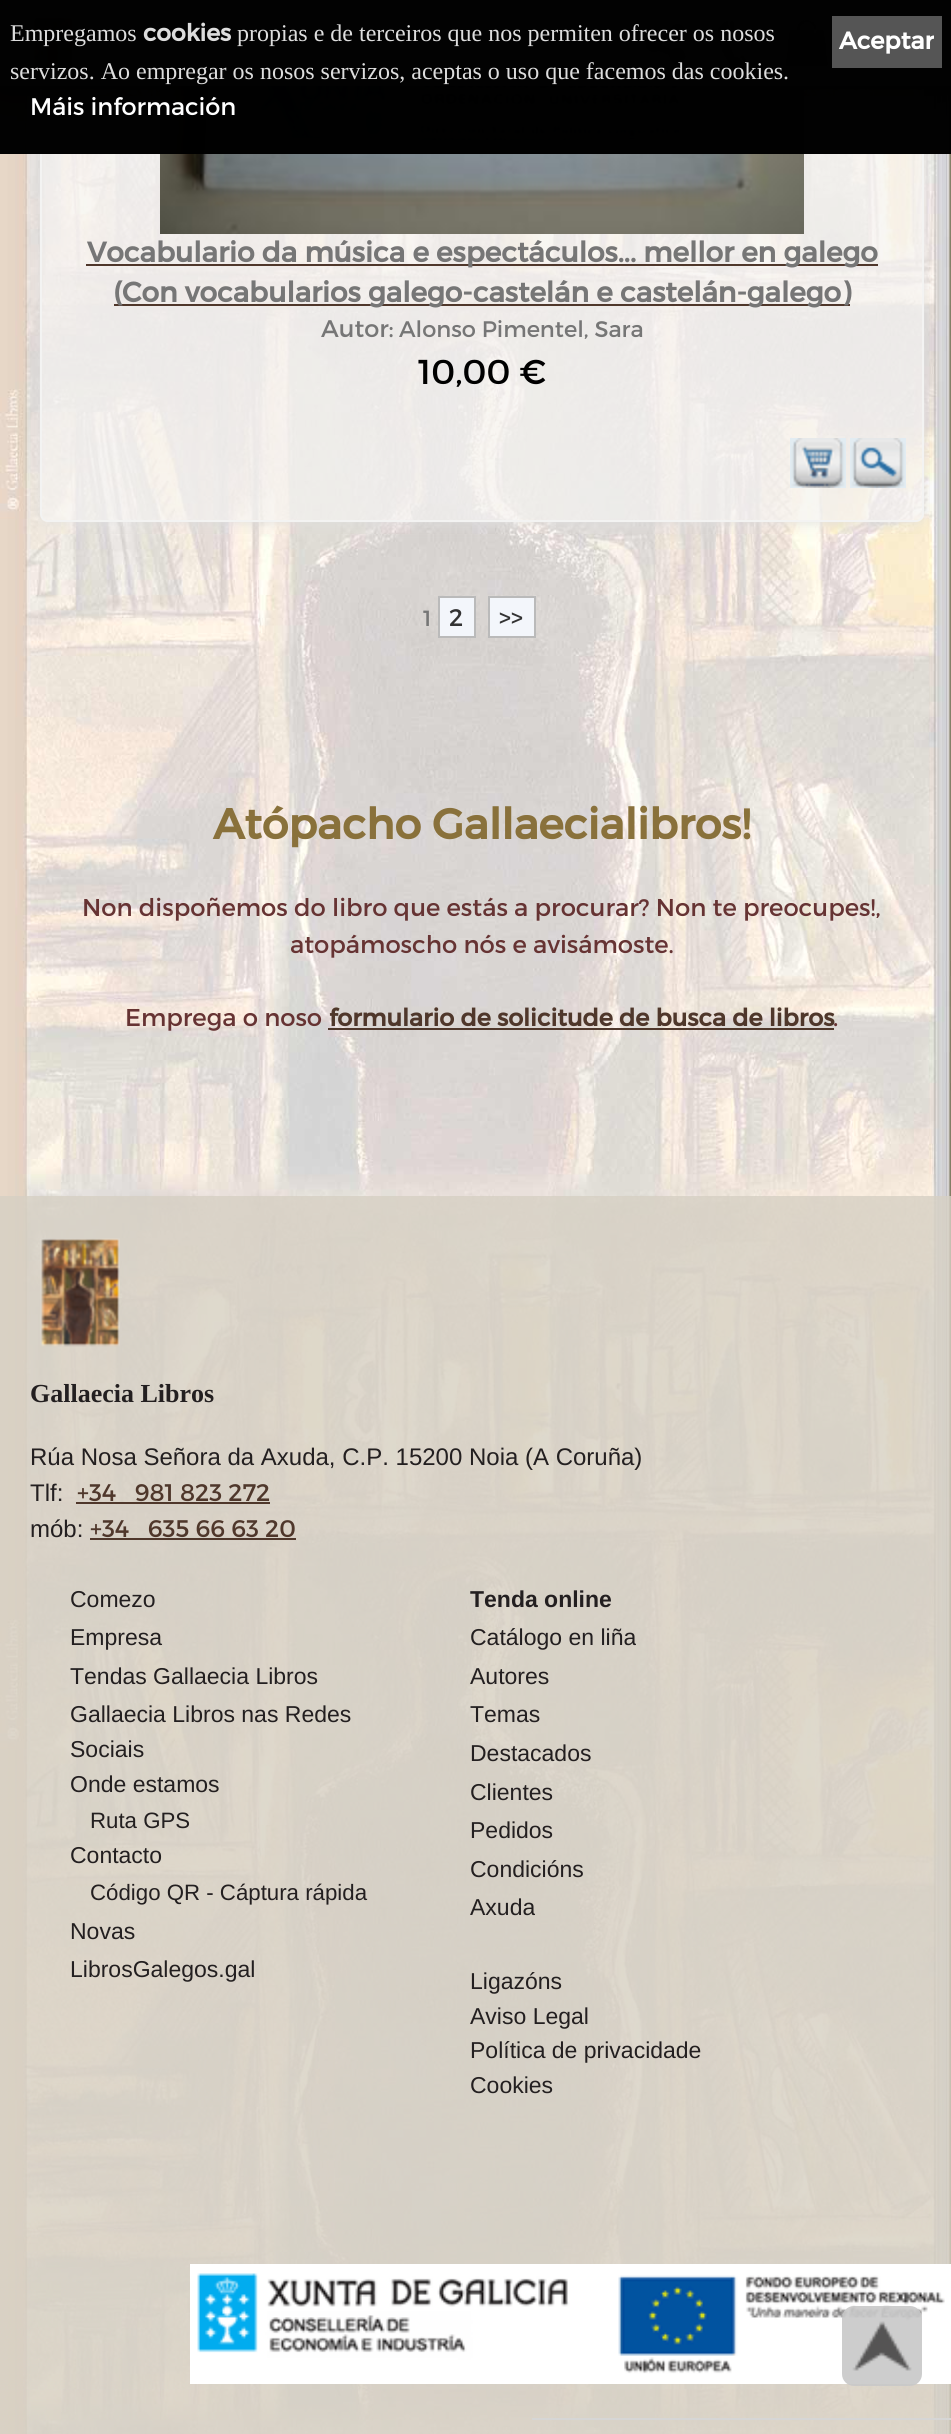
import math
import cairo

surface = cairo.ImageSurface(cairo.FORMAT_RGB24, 951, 2434)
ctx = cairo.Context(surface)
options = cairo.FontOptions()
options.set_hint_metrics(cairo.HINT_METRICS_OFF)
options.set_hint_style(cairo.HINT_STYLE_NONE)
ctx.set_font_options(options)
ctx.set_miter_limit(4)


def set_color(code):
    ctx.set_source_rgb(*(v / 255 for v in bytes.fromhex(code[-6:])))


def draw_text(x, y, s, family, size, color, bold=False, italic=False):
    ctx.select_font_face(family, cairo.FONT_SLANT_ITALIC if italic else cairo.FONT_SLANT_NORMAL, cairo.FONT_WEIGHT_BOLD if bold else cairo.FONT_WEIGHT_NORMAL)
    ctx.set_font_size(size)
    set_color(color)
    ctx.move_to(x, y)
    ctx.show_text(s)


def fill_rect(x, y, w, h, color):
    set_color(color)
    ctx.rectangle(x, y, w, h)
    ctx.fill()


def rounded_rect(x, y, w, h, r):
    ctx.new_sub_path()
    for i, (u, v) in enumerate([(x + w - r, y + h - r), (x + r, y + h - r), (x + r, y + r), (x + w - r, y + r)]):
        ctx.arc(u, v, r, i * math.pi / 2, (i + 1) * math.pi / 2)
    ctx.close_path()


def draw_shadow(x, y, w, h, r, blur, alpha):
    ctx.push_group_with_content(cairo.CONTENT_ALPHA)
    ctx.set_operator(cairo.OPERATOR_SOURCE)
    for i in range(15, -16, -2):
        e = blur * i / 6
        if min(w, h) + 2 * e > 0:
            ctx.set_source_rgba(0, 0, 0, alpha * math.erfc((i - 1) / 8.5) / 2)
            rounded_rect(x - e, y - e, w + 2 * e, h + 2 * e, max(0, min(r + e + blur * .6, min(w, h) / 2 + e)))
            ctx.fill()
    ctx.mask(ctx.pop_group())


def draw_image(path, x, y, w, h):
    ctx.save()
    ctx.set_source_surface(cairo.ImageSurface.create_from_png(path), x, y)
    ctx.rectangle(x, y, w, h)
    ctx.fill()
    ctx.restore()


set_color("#ffffff")
ctx.paint()
draw_image("assets/img1.png", 0, 0, 951, 2434)
ctx.save()
ctx.set_fill_rule(cairo.FILL_RULE_EVEN_ODD)
ctx.new_path()
ctx.move_to(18, 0)
ctx.line_to(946, 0)
ctx.line_to(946, 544)
ctx.line_to(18, 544)
ctx.close_path()
ctx.move_to(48, -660)
ctx.line_to(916, -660)
ctx.curve_to(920.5, -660, 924, -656.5, 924, -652)
ctx.line_to(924, 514)
ctx.curve_to(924, 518.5, 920.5, 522, 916, 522)
ctx.line_to(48, 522)
ctx.curve_to(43.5, 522, 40, 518.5, 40, 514)
ctx.line_to(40, -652)
ctx.curve_to(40, -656.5, 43.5, -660, 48, -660)
ctx.close_path()
ctx.clip()
set_color("#dfdfdf")
draw_shadow(40, -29, 884, 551, 8, 7, 1)
ctx.restore()
ctx.set_source_rgba(0.961, 0.957, 0.953, 0.7)
rounded_rect(41, -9, 882, 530, 7)
ctx.fill_preserve()
set_color("#f3f3f2")
ctx.stroke()
draw_image("assets/img6.png", 160, 0, 644, 234)
ctx.set_source_rgba(0.961, 0.957, 0.953, 0.8)
ctx.rectangle(0, 0, 951, 86)
ctx.fill()
ctx.save()
ctx.rectangle(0, 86, 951, 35)
ctx.clip()
set_color("#000000")
draw_shadow(0, 0, 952, 86, 0, 20, 0.5)
ctx.restore()
draw_image("assets/img2.png", 33, 17, 41, 54)
draw_image("assets/img3.png", 643, 23, 44, 42)
draw_image("assets/img4.png", 717, 19, 33, 50)
draw_image("assets/img5.png", 785, 19, 44, 49)
ctx.set_source_rgba(0, 0, 0, 0.99)
ctx.rectangle(0, 0, 951, 154)
ctx.fill()
draw_text(10, 41, "Empregamos", "Liberation Serif", 24, "#dddddd")
draw_text(143, 41, "cookies", "Montserrat", 23.5, "#dddddd", bold=True)
draw_text(237, 41, "propias e de terceiros que nos permiten ofrecer os nosos", "Liberation Serif", 24, "#dddddd")
fill_rect(832, 16, 110, 52, "#555555")
draw_text(839, 49, "Aceptar", "Montserrat", 24, "#ffffff", bold=True)
draw_text(10, 79, "servizos. Ao empregar os nosos servizos, aceptas o uso que facemos das cookies.", "Liberation Serif", 24, "#dddddd")
draw_text(30, 115, "Máis información", "Montserrat", 24, "#ffffff")
fill_rect(86, 264, 792, 2, "#4f372b")
draw_text(87, 262, "Vocabulario da música e espectáculos... mellor en galego", "Montserrat", 28, "#767676", bold=True)
fill_rect(114, 304, 736, 2, "#4f372b")
draw_text(113, 302, "(Con vocabularios galego-castelán e castelán-galego)", "Montserrat", 28, "#767676", bold=True)
draw_text(321, 337, "Autor:", "Montserrat", 24, "#767676")
draw_text(399, 337, "Alonso Pimentel, Sara", "Montserrat", 22.5, "#767676")
draw_text(418, 384, "10,00 €", "Montserrat", 34.5, "#000000")
draw_image("assets/img7.png", 790, 438, 56, 50)
draw_image("assets/img8.png", 850, 438, 56, 50)
draw_text(423, 626, "1", "Montserrat", 22, "#767676")
set_color("#f3f6fb")
ctx.rectangle(439, 597, 36, 40)
ctx.fill_preserve()
set_color("#bababa")
ctx.stroke()
draw_text(449, 626, "2", "Montserrat", 24, "#333333")
set_color("#f3f6fb")
ctx.rectangle(489, 597, 46, 40)
ctx.fill_preserve()
set_color("#bababa")
ctx.stroke()
draw_text(499, 626, ">>", "Montserrat", 24, "#333333")
draw_text(213, 839, "Atópacho Gallaecialibros!", "Montserrat", 42.5, "#89713b", bold=True)
draw_text(82, 916, "Non dispoñemos do libro que estás a procurar? Non te preocupes!,", "Montserrat", 24.3, "#663333")
draw_text(290, 953, "atopámoscho nós e avisámoste.", "Montserrat", 24.3, "#663333")
draw_text(125, 1026, "Emprega o noso", "Montserrat", 24.3, "#663333")
draw_text(329, 1026, "formulario de solicitude de busca de libros", "Montserrat", 23.9, "#4f372b", bold=True)
fill_rect(328, 1028, 506, 2, "#4f372b")
draw_text(833, 1026, ".", "Montserrat", 24.3, "#663333")
ctx.set_source_rgba(0.835, 0.812, 0.765, 0.8)
ctx.rectangle(0, 1196, 951, 1238)
ctx.fill()
draw_image("assets/img9.png", 40, 1238, 80, 109)
draw_text(30, 1402, "Gallaecia Libros", "Liberation Serif", 26, "#231f20", bold=True)
draw_text(30, 1465, "Rúa Nosa Señora da Axuda, C.P. 15200 Noia (A Coruña)", "Liberation Sans", 24, "#231f20")
draw_text(30, 1501, "Tlf:", "Liberation Sans", 24, "#231f20")
draw_text(77, 1501, "+34   981 823 272", "Montserrat", 24, "#4f372b")
fill_rect(76, 1502, 194, 2, "#4f372b")
draw_text(30, 1537, "mób:", "Liberation Sans", 24, "#231f20")
draw_text(90, 1537, "+34   635 66 63 20", "Montserrat", 24, "#4f372b")
fill_rect(90, 1538, 206, 2, "#4f372b")
draw_text(70, 1607, "Comezo", "Liberation Sans", 23, "#231f20")
draw_text(70, 1645, "Empresa", "Liberation Sans", 23, "#231f20")
draw_text(70, 1684, "Tendas Gallaecia Libros", "Liberation Sans", 23, "#231f20")
draw_text(70, 1722, "Gallaecia Libros nas Redes", "Liberation Sans", 23, "#231f20")
draw_text(70, 1757, "Sociais", "Liberation Sans", 23, "#231f20")
draw_text(70, 1792, "Onde estamos", "Liberation Sans", 23, "#231f20")
draw_text(90, 1828, "Ruta GPS", "Liberation Sans", 22.25, "#231f20")
draw_text(70, 1863, "Contacto", "Liberation Sans", 23, "#231f20")
draw_text(90, 1900, "Código QR - Cáptura rápida", "Liberation Sans", 22.25, "#231f20")
draw_text(70, 1939, "Novas", "Liberation Sans", 23, "#231f20")
draw_text(70, 1977, "LibrosGalegos.gal", "Liberation Sans", 23, "#231f20")
draw_text(470, 1607, "Tenda online", "Liberation Sans", 23, "#231f20", bold=True)
draw_text(470, 1645, "Catálogo en liña", "Liberation Sans", 23, "#231f20")
draw_text(470, 1684, "Autores", "Liberation Sans", 23, "#231f20")
draw_text(470, 1722, "Temas", "Liberation Sans", 23, "#231f20")
draw_text(470, 1761, "Destacados", "Liberation Sans", 23, "#231f20")
draw_text(470, 1800, "Clientes", "Liberation Sans", 23, "#231f20")
draw_text(470, 1838, "Pedidos", "Liberation Sans", 23, "#231f20")
draw_text(470, 1877, "Condicións", "Liberation Sans", 23, "#231f20")
draw_text(470, 1915, "Axuda", "Liberation Sans", 23, "#231f20")
draw_text(470, 1989, "Ligazóns", "Liberation Sans", 23, "#231f20")
draw_text(470, 2024, "Aviso Legal", "Liberation Sans", 23, "#231f20")
draw_text(470, 2058, "Política de privacidade", "Liberation Sans", 23, "#231f20")
draw_text(470, 2093, "Cookies", "Liberation Sans", 23, "#231f20")
draw_image("assets/img10.png", 190, 2264, 761, 120)
fill_rect(532, 2418, 419, 2, "#d6d6d6")
ctx.set_source_rgba(0.784, 0.784, 0.784, 0.9)
rounded_rect(842, 2306, 80, 80, 12)
ctx.fill()
draw_image("assets/img11.png", 852, 2321, 60, 50)
surface.write_to_png("output.png")
